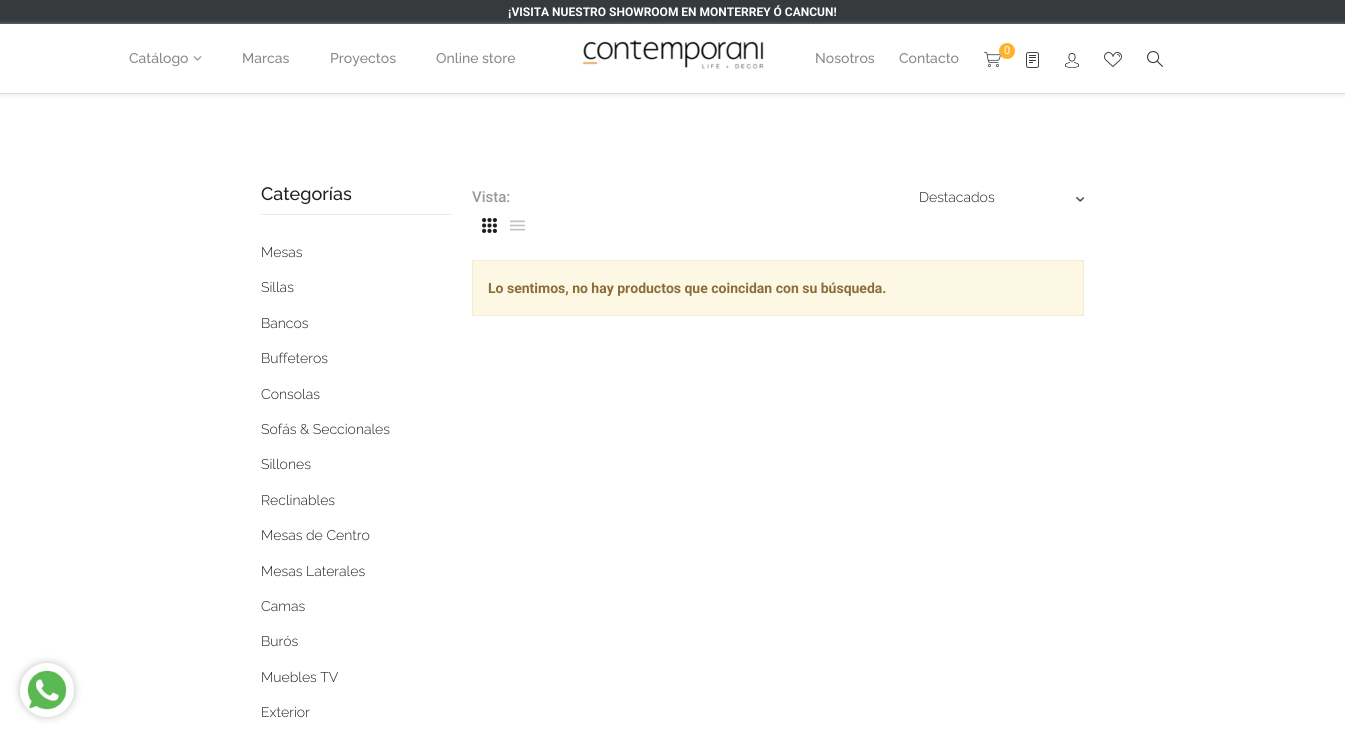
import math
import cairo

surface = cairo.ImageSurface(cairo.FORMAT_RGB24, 1345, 737)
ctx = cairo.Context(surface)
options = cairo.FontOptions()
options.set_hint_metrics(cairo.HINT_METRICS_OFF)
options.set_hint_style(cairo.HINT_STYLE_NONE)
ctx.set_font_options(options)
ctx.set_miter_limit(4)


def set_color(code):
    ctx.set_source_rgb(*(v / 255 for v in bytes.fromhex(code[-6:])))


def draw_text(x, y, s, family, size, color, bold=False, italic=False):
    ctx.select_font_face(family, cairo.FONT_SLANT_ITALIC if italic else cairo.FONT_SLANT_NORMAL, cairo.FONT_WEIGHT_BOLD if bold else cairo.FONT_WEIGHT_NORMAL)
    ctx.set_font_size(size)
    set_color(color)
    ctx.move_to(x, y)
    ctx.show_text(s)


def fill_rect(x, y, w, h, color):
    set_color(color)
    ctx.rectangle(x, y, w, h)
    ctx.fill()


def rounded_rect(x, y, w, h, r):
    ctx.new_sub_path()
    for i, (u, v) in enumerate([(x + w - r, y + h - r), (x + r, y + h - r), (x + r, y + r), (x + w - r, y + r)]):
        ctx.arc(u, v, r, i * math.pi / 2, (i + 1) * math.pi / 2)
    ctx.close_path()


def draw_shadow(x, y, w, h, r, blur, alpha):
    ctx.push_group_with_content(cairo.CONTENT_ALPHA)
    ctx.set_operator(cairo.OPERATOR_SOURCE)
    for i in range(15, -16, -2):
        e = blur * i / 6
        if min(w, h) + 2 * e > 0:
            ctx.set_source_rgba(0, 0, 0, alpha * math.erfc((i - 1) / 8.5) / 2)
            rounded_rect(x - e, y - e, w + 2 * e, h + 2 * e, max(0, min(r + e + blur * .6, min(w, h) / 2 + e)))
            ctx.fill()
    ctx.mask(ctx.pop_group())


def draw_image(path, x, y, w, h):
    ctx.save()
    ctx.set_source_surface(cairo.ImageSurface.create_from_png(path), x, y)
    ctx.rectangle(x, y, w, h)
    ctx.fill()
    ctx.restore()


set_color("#ffffff")
ctx.paint()
set_color("#c2c2c2")
draw_shadow(20, 663, 54, 54, 27, 4, 1)
draw_image("assets/img1.png", 20, 663, 54, 54)
fill_rect(0, 0, 1345, 24, "#373a3c")
ctx.save()
ctx.set_fill_rule(cairo.FILL_RULE_EVEN_ODD)
ctx.new_path()
ctx.move_to(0, 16)
ctx.line_to(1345, 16)
ctx.line_to(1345, 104)
ctx.line_to(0, 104)
ctx.close_path()
ctx.move_to(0, 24)
ctx.line_to(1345, 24)
ctx.line_to(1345, 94)
ctx.line_to(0, 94)
ctx.close_path()
ctx.clip()
set_color("#dddddd")
draw_shadow(0, 25, 1345, 70, 0, 2.5, 0.66)
ctx.restore()
draw_text(508, 16, "¡VISITA NUESTRO SHOWROOM EN MONTERREY Ó CANCUN!", "Roboto", 12, "#ffffff", bold=True)
fill_rect(0, 93, 1345, 1, "#dddddd")
draw_text(129, 63, "Catálogo", "Raleway Medium", 14, "#898989")
draw_image("assets/img2.png", 193, 56, 9, 5)
draw_text(242, 63, "Marcas", "Raleway Medium", 14, "#898989")
draw_text(330, 63, "Proyectos", "Raleway Medium", 14, "#898989")
draw_text(436, 63, "Online store", "Raleway Medium", 14, "#898989")
draw_image("assets/img3.png", 582, 40, 182, 29)
draw_text(815, 63, "Nosotros", "Raleway Medium", 14, "#898989")
draw_text(899, 63, "Contacto", "Raleway Medium", 14, "#898989")
draw_image("assets/img4.png", 984, 52, 17, 15)
set_color("#ffb32c")
ctx.arc(1007, 51, 8, 0, 2 * math.pi)
ctx.fill()
draw_text(1004, 54, "0", "Roboto", 11, "#ffffff")
draw_image("assets/img5.png", 1026, 52, 13, 16)
draw_image("assets/img6.png", 1065, 53, 14, 15)
draw_image("assets/img7.png", 1104, 52, 18, 15)
draw_image("assets/img8.png", 1147, 51, 16, 16)
fill_rect(261, 214, 191, 1, "#ebebeb")
draw_text(261, 200, "Categorías", "Raleway Medium", 18, "#201f1f")
draw_text(261, 257, "Mesas", "Raleway Light", 14, "#201f1f")
draw_text(261, 292, "Sillas", "Raleway Light", 14, "#201f1f")
draw_text(261, 328, "Bancos", "Raleway Light", 14, "#201f1f")
draw_text(261, 363, "Buffeteros", "Raleway Light", 14, "#201f1f")
draw_text(261, 399, "Consolas", "Raleway Light", 14, "#201f1f")
draw_text(261, 434, "Sofás & Seccionales", "Raleway Light", 14, "#201f1f")
draw_text(261, 469, "Sillones", "Raleway Light", 14, "#201f1f")
draw_text(261, 505, "Reclinables", "Raleway Light", 14, "#201f1f")
draw_text(261, 540, "Mesas de Centro", "Raleway Light", 14, "#201f1f")
draw_text(261, 576, "Mesas Laterales", "Raleway Light", 14, "#201f1f")
draw_text(261, 611, "Camas", "Raleway Light", 14, "#201f1f")
draw_text(261, 646, "Burós", "Raleway Light", 14, "#201f1f")
draw_text(261, 682, "Muebles TV", "Raleway Light", 14, "#201f1f")
draw_text(261, 717, "Exterior", "Raleway Light", 14, "#201f1f")
draw_text(472, 202, "Vista:", "Roboto Medium", 15, "#999999")
draw_image("assets/img9.png", 482, 218, 15, 15)
draw_image("assets/img10.png", 510, 220, 15, 11)
draw_image("assets/img11.png", 1076, 197, 8, 5)
draw_text(919, 202, "Destacados", "Raleway Light", 14, "#201f1f")
set_color("#fcf8e3")
ctx.rectangle(472.5, 260.5, 611, 55)
ctx.fill_preserve()
set_color("#faebcc")
ctx.set_line_width(1)
ctx.stroke()
draw_text(488, 293, "Lo sentimos, no hay productos que coincidan con su búsqueda.", "Roboto", 14, "#8a6d3b", bold=True)
surface.write_to_png("output.png")
